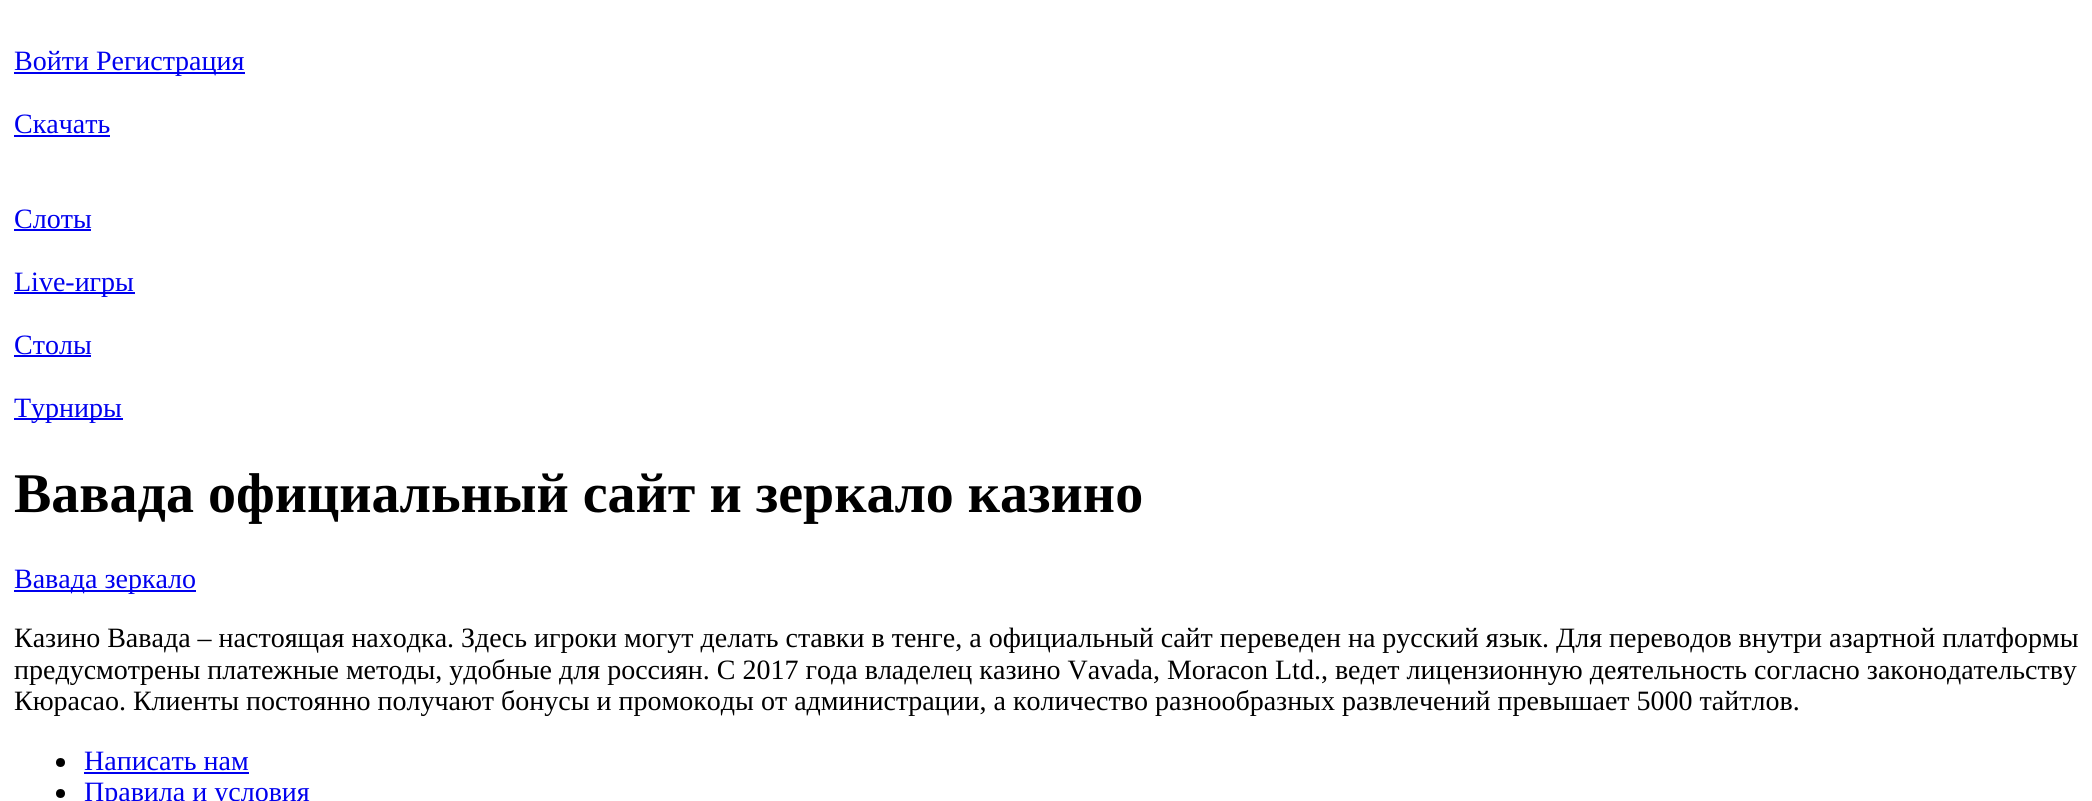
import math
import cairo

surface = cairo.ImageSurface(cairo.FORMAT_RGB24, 2092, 801)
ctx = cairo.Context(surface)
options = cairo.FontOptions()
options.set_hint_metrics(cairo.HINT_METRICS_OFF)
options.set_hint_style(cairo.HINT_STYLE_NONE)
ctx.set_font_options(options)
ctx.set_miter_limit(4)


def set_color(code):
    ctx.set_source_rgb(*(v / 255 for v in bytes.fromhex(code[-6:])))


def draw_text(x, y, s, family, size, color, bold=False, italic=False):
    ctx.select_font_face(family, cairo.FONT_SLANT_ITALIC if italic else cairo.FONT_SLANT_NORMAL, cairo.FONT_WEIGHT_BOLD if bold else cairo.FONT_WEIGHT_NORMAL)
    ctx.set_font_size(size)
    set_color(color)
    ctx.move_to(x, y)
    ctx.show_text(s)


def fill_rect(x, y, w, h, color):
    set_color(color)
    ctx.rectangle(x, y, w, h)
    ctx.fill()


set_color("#ffffff")
ctx.paint()
fill_rect(14, 72, 231, 2, "#0000ee")
draw_text(14, 70, "Войти Регистрация", "Liberation Serif", 28, "#0000ee")
draw_text(14, 133, "Скачать", "Liberation Serif", 28, "#0000ee")
fill_rect(14, 135, 96, 2, "#0000ee")
draw_text(14, 228, "Слоты", "Liberation Serif", 28, "#0000ee")
fill_rect(14, 229, 77, 2, "#0000ee")
fill_rect(14, 292, 121, 2, "#0000ee")
draw_text(14, 291, "Live-игры", "Liberation Serif", 28, "#0000ee")
draw_text(14, 354, "Столы", "Liberation Serif", 28, "#0000ee")
fill_rect(14, 355, 77, 2, "#0000ee")
fill_rect(14, 418, 109, 2, "#0000ee")
draw_text(14, 417, "Турниры", "Liberation Serif", 28, "#0000ee")
draw_text(14, 512, "Вавада официальный сайт и зеркало казино", "Liberation Serif", 56, "#000000", bold=True)
fill_rect(14, 590, 182, 2, "#0000ee")
draw_text(14, 588, "Вавада зеркало", "Liberation Serif", 28, "#0000ee")
draw_text(14, 647, "Казино Вавада – настоящая находка. Здесь игроки могут делать ставки в тенге, а официальный сайт переведен на русский язык. Для переводов внутри азартной платформы", "Liberation Serif", 28, "#000000")
draw_text(14, 679, "предусмотрены платежные методы, удобные для россиян. С 2017 года владелец казино Vavada, Moracon Ltd., ведет лицензионную деятельность согласно законодательству", "Liberation Serif", 28, "#000000")
draw_text(14, 710, "Кюрасао. Клиенты постоянно получают бонусы и промокоды от администрации, а количество разнообразных развлечений превышает 5000 тайтлов.", "Liberation Serif", 28, "#000000")
ctx.new_path()
ctx.arc(60.5, 762.5, 4.5, 0, 2 * math.pi)
ctx.fill()
draw_text(84, 770, "Написать нам", "Liberation Serif", 28, "#0000ee")
fill_rect(84, 772, 165, 2, "#0000ee")
set_color("#000000")
ctx.new_path()
ctx.arc(60.5, 793.5, 4.5, 0, 2 * math.pi)
ctx.fill()
draw_text(84, 801, "Правила и условия", "Liberation Serif", 28, "#0000ee")
surface.write_to_png("output.png")
